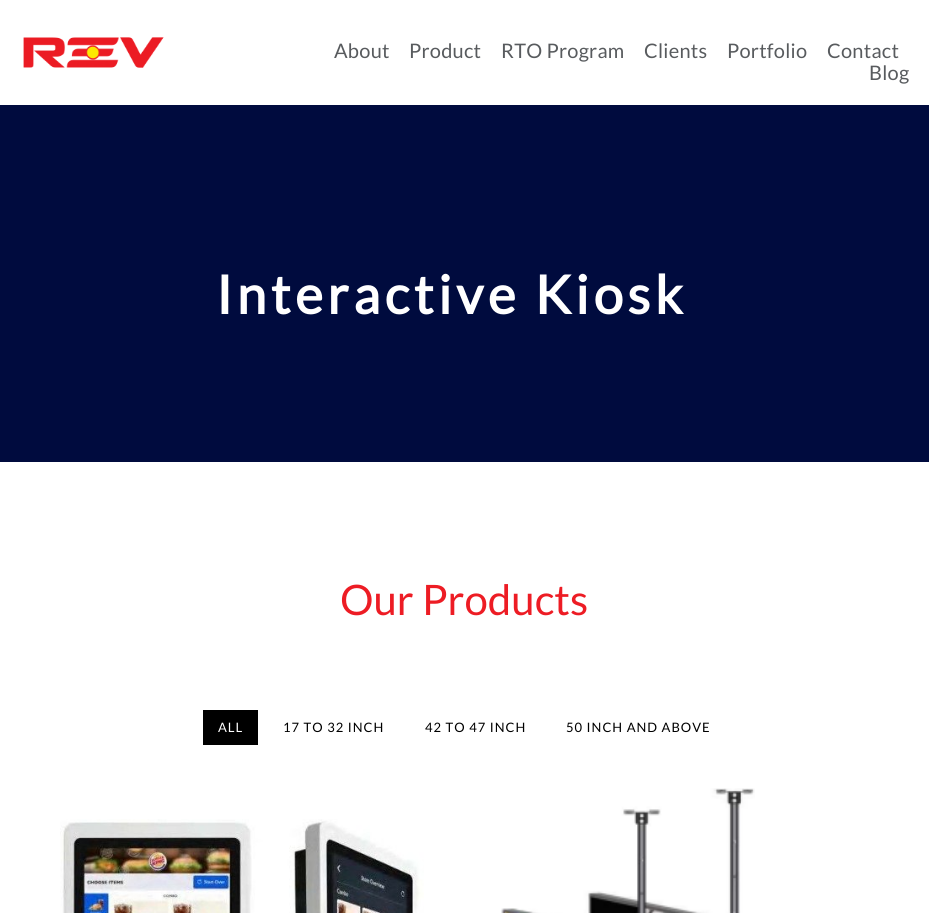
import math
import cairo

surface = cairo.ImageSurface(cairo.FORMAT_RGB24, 929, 913)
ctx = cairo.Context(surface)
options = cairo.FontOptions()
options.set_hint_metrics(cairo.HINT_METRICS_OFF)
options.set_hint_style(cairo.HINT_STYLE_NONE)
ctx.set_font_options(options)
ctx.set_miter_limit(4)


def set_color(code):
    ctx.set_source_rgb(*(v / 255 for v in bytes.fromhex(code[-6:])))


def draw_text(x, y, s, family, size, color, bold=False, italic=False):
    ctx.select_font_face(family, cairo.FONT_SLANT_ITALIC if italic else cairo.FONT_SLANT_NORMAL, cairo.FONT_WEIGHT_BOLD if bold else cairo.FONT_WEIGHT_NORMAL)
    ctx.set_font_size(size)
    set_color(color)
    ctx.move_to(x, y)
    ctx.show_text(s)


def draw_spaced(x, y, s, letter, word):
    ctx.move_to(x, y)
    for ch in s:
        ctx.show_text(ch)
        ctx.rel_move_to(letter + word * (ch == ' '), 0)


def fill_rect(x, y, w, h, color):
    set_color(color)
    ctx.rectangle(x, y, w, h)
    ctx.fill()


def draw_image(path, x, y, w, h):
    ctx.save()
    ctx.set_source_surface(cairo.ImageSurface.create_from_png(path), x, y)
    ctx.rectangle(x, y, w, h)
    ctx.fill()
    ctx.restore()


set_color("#ffffff")
ctx.paint()
draw_image("assets/img1.png", 23, 37, 141, 31)
ctx.select_font_face("Lato")
ctx.set_font_size(20)
set_color("#585b5e")
draw_spaced(334, 58, "About", 0.25, 0)
draw_spaced(409, 58, "Product", 0.25, 0)
draw_spaced(501, 58, "RTO Program", 0.25, 0)
draw_spaced(644, 58, "Clients", 0.25, 0)
draw_spaced(727, 58, "Portfolio", 0.25, 0)
draw_spaced(827, 58, "Contact", 0.25, 0)
draw_spaced(869, 80, "Blog", 0.25, 0)
fill_rect(0, 105, 929, 357, "#000b3e")
ctx.select_font_face("Lato", cairo.FONT_SLANT_NORMAL, cairo.FONT_WEIGHT_BOLD)
ctx.set_font_size(53)
set_color("#ffffff")
draw_spaced(216, 314, "Interactive Kiosk", 4.5, 0)
draw_text(340, 615, "Our Products", "Lato", 42, "#ed1c24")
fill_rect(203, 710, 55, 35, "#000000")
ctx.set_font_size(13)
set_color("#ffffff")
draw_spaced(218, 732, "ALL", 1, 0)
set_color("#000000")
draw_spaced(283, 732, "17 TO 32 INCH", 1, 0)
draw_spaced(425, 732, "42 TO 47 INCH", 1, 0)
draw_spaced(566, 732, "50 INCH AND ABOVE", 1, 0)
draw_image("assets/img2.png", 60, 819, 364, 94)
draw_image("assets/img3.png", 501, 788, 254, 125)
surface.write_to_png("output.png")
